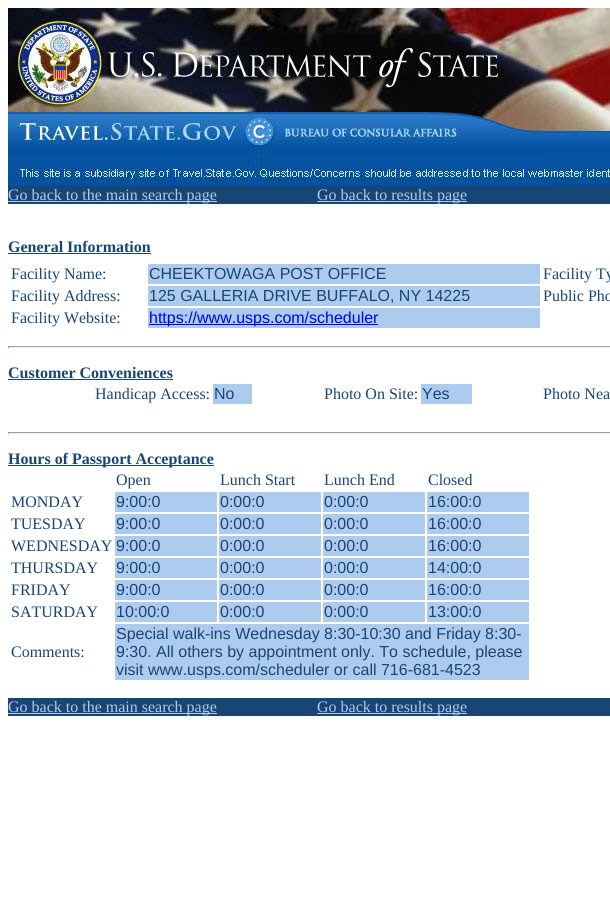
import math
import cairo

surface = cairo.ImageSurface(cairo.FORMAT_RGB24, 610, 918)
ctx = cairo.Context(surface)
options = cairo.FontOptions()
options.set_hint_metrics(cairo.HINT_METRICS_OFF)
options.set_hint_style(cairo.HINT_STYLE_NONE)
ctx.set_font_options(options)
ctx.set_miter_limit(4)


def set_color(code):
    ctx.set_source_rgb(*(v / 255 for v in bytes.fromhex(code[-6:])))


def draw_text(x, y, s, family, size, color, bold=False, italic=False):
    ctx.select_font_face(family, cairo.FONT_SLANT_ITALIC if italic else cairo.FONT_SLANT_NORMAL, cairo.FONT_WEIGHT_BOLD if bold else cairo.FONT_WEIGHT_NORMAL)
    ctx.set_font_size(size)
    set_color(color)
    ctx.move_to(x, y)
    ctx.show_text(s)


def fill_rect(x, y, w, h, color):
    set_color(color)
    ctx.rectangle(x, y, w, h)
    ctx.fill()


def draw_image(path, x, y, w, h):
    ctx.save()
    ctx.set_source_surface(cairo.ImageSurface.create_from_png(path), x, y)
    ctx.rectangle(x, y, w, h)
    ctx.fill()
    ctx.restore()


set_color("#ffffff")
ctx.paint()
fill_rect(8, 186, 602, 18, "#184573")
draw_image("assets/img1.png", 8, 8, 602, 178)
fill_rect(8, 201, 209, 1, "#adcbef")
draw_text(8, 200, "Go back to the main search page", "Liberation Serif", 16, "#adcbef")
fill_rect(317, 201, 150, 1, "#adcbef")
draw_text(317, 200, "Go back to results page", "Liberation Serif", 16, "#adcbef")
draw_text(8, 252, "General Information", "Liberation Serif", 16, "#184573", bold=True)
fill_rect(8, 253, 143, 1, "#184573")
draw_text(11, 279, "Facility Name:", "Liberation Serif", 16, "#184573")
fill_rect(148, 264, 392, 20, "#adcbef")
draw_text(149, 279, "CHEEKTOWAGA POST OFFICE", "Liberation Sans", 16, "#184573")
draw_text(543, 279, "Facility Ty", "Liberation Serif", 16, "#184573")
draw_text(11, 301, "Facility Address:", "Liberation Serif", 16, "#184573")
fill_rect(148, 286, 392, 20, "#adcbef")
draw_text(149, 301, "125 GALLERIA DRIVE BUFFALO, NY 14225", "Liberation Sans", 16, "#184573")
draw_text(543, 301, "Public Pho", "Liberation Serif", 16, "#184573")
draw_text(11, 323, "Facility Website:", "Liberation Serif", 16, "#184573")
fill_rect(148, 308, 392, 20, "#adcbef")
fill_rect(149, 324, 229, 1, "#0000ee")
draw_text(149, 323, "https://www.usps.com/scheduler", "Liberation Sans", 16, "#0000ee")
fill_rect(8, 346, 602, 1, "#9f9f9f")
fill_rect(8, 347, 602, 1, "#eeeeee")
fill_rect(8, 346, 1, 2, "#9f9f9f")
draw_text(8, 378, "Customer Conveniences", "Liberation Serif", 16, "#184573", bold=True)
fill_rect(8, 379, 165, 1, "#184573")
draw_text(95, 399, "Handicap Access:", "Liberation Serif", 16, "#184573")
fill_rect(213, 384, 39, 20, "#adcbef")
draw_text(214, 399, "No", "Liberation Sans", 16, "#184573")
draw_text(324, 399, "Photo On Site:", "Liberation Serif", 16, "#184573")
fill_rect(421, 384, 51, 20, "#adcbef")
draw_text(422, 399, "Yes", "Liberation Sans", 16, "#184573")
draw_text(543, 399, "Photo Nea", "Liberation Serif", 16, "#184573")
fill_rect(8, 432, 602, 1, "#9f9f9f")
fill_rect(8, 433, 602, 1, "#eeeeee")
fill_rect(8, 432, 1, 2, "#9f9f9f")
fill_rect(8, 465, 206, 1, "#184573")
draw_text(8, 464, "Hours of Passport Acceptance", "Liberation Serif", 16, "#184573", bold=True)
draw_text(116, 485, "Open", "Liberation Serif", 16, "#184573")
draw_text(220, 485, "Lunch Start", "Liberation Serif", 16, "#184573")
draw_text(324, 485, "Lunch End", "Liberation Serif", 16, "#184573")
draw_text(428, 485, "Closed", "Liberation Serif", 16, "#184573")
draw_text(11, 507, "MONDAY", "Liberation Serif", 16, "#184573")
fill_rect(115, 492, 102, 20, "#adcbef")
draw_text(116, 507, "9:00:0", "Liberation Sans", 16, "#184573")
fill_rect(219, 492, 102, 20, "#adcbef")
draw_text(220, 507, "0:00:0", "Liberation Sans", 16, "#184573")
fill_rect(323, 492, 102, 20, "#adcbef")
draw_text(324, 507, "0:00:0", "Liberation Sans", 16, "#184573")
fill_rect(427, 492, 102, 20, "#adcbef")
draw_text(428, 507, "16:00:0", "Liberation Sans", 16, "#184573")
draw_text(11, 529, "TUESDAY", "Liberation Serif", 16, "#184573")
fill_rect(115, 514, 102, 20, "#adcbef")
draw_text(116, 529, "9:00:0", "Liberation Sans", 16, "#184573")
fill_rect(219, 514, 102, 20, "#adcbef")
draw_text(220, 529, "0:00:0", "Liberation Sans", 16, "#184573")
fill_rect(323, 514, 102, 20, "#adcbef")
draw_text(324, 529, "0:00:0", "Liberation Sans", 16, "#184573")
fill_rect(427, 514, 102, 20, "#adcbef")
draw_text(428, 529, "16:00:0", "Liberation Sans", 16, "#184573")
draw_text(11, 551, "WEDNESDAY", "Liberation Serif", 16, "#184573")
fill_rect(115, 536, 102, 20, "#adcbef")
draw_text(116, 551, "9:00:0", "Liberation Sans", 16, "#184573")
fill_rect(219, 536, 102, 20, "#adcbef")
draw_text(220, 551, "0:00:0", "Liberation Sans", 16, "#184573")
fill_rect(323, 536, 102, 20, "#adcbef")
draw_text(324, 551, "0:00:0", "Liberation Sans", 16, "#184573")
fill_rect(427, 536, 102, 20, "#adcbef")
draw_text(428, 551, "16:00:0", "Liberation Sans", 16, "#184573")
draw_text(11, 573, "THURSDAY", "Liberation Serif", 16, "#184573")
fill_rect(115, 558, 102, 20, "#adcbef")
draw_text(116, 573, "9:00:0", "Liberation Sans", 16, "#184573")
fill_rect(219, 558, 102, 20, "#adcbef")
draw_text(220, 573, "0:00:0", "Liberation Sans", 16, "#184573")
fill_rect(323, 558, 102, 20, "#adcbef")
draw_text(324, 573, "0:00:0", "Liberation Sans", 16, "#184573")
fill_rect(427, 558, 102, 20, "#adcbef")
draw_text(428, 573, "14:00:0", "Liberation Sans", 16, "#184573")
draw_text(11, 595, "FRIDAY", "Liberation Serif", 16, "#184573")
fill_rect(115, 580, 102, 20, "#adcbef")
draw_text(116, 595, "9:00:0", "Liberation Sans", 16, "#184573")
fill_rect(219, 580, 102, 20, "#adcbef")
draw_text(220, 595, "0:00:0", "Liberation Sans", 16, "#184573")
fill_rect(323, 580, 102, 20, "#adcbef")
draw_text(324, 595, "0:00:0", "Liberation Sans", 16, "#184573")
fill_rect(427, 580, 102, 20, "#adcbef")
draw_text(428, 595, "16:00:0", "Liberation Sans", 16, "#184573")
draw_text(11, 617, "SATURDAY", "Liberation Serif", 16, "#184573")
fill_rect(115, 602, 102, 20, "#adcbef")
draw_text(116, 617, "10:00:0", "Liberation Sans", 16, "#184573")
fill_rect(219, 602, 102, 20, "#adcbef")
draw_text(220, 617, "0:00:0", "Liberation Sans", 16, "#184573")
fill_rect(323, 602, 102, 20, "#adcbef")
draw_text(324, 617, "0:00:0", "Liberation Sans", 16, "#184573")
fill_rect(427, 602, 102, 20, "#adcbef")
draw_text(428, 617, "13:00:0", "Liberation Sans", 16, "#184573")
draw_text(11, 657, "Comments:", "Liberation Serif", 16, "#184573")
fill_rect(115, 624, 414, 56, "#adcbef")
draw_text(116, 639, "Special walk-ins Wednesday 8:30-10:30 and Friday 8:30-", "Liberation Sans", 16, "#184573")
draw_text(116, 657, "9:30. All others by appointment only. To schedule, please", "Liberation Sans", 16, "#184573")
draw_text(116, 675, "visit www.usps.com/scheduler or call 716-681-4523", "Liberation Sans", 16, "#184573")
fill_rect(8, 698, 602, 18, "#184573")
fill_rect(8, 713, 209, 1, "#adcbef")
draw_text(8, 712, "Go back to the main search page", "Liberation Serif", 16, "#adcbef")
fill_rect(317, 713, 150, 1, "#adcbef")
draw_text(317, 712, "Go back to results page", "Liberation Serif", 16, "#adcbef")
surface.write_to_png("output.png")
